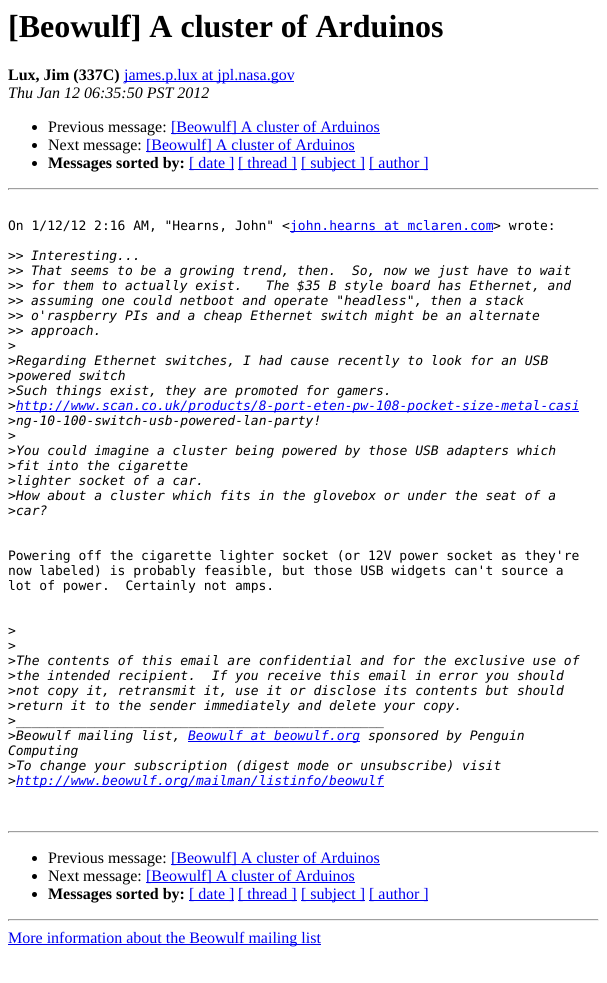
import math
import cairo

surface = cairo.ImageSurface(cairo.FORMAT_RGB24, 607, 983)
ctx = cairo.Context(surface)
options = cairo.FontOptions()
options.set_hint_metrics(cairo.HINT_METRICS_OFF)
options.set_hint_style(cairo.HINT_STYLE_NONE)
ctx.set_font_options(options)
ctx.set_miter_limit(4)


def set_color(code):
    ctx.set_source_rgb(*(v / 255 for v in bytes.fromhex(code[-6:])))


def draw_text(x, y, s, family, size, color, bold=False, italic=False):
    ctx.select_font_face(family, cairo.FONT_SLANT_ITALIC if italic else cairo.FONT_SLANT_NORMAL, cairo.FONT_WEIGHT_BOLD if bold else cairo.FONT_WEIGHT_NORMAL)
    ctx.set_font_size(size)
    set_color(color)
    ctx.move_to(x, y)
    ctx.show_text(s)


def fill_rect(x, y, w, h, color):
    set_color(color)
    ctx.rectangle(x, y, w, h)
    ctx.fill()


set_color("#ffffff")
ctx.paint()
draw_text(8, 37, "[Beowulf] A cluster of Arduinos", "Liberation Serif", 32, "#000000", bold=True)
draw_text(8, 80, "Lux, Jim (337C)", "Liberation Serif", 16, "#000000", bold=True)
fill_rect(124, 81, 170, 1, "#0000ee")
draw_text(124, 80, "james.p.lux at jpl.nasa.gov", "Liberation Serif", 16, "#0000ee")
draw_text(8, 98, "Thu Jan 12 06:35:50 PST 2012", "Liberation Serif", 16, "#000000", italic=True)
ctx.new_path()
ctx.arc(34.5, 127.5, 2.5, 0, 2 * math.pi)
ctx.fill()
draw_text(48, 132, "Previous message:", "Liberation Serif", 16, "#000000")
fill_rect(171, 133, 209, 1, "#0000ee")
draw_text(171, 132, "[Beowulf] A cluster of Arduinos", "Liberation Serif", 16, "#0000ee")
set_color("#000000")
ctx.new_path()
ctx.arc(34.5, 145.5, 2.5, 0, 2 * math.pi)
ctx.fill()
draw_text(48, 150, "Next message:", "Liberation Serif", 16, "#000000")
fill_rect(146, 151, 209, 1, "#0000ee")
draw_text(146, 150, "[Beowulf] A cluster of Arduinos", "Liberation Serif", 16, "#0000ee")
set_color("#000000")
ctx.new_path()
ctx.arc(34.5, 163.5, 2.5, 0, 2 * math.pi)
ctx.fill()
draw_text(48, 168, "Messages sorted by:", "Liberation Serif", 16, "#000000", bold=True)
fill_rect(189, 169, 45, 1, "#0000ee")
draw_text(189, 168, "[ date ]", "Liberation Serif", 16, "#0000ee")
fill_rect(238, 169, 59, 1, "#0000ee")
draw_text(238, 168, "[ thread ]", "Liberation Serif", 16, "#0000ee")
fill_rect(301, 169, 64, 1, "#0000ee")
draw_text(301, 168, "[ subject ]", "Liberation Serif", 16, "#0000ee")
fill_rect(369, 169, 59, 1, "#0000ee")
draw_text(369, 168, "[ author ]", "Liberation Serif", 16, "#0000ee")
fill_rect(8, 188, 591, 1, "#9f9f9f")
fill_rect(598, 188, 1, 2, "#eeeeee")
fill_rect(8, 189, 591, 1, "#eeeeee")
fill_rect(8, 188, 1, 2, "#9f9f9f")
draw_text(8, 230, "On 1/12/12 2:16 AM, \"Hearns, John\" <", "DejaVu Sans Mono", 13, "#000000")
fill_rect(290, 231, 203, 1, "#0000ee")
draw_text(290, 230, "john.hearns at mclaren.com", "DejaVu Sans Mono", 13, "#0000ee")
draw_text(493, 230, "> wrote:", "DejaVu Sans Mono", 13, "#000000")
draw_text(8, 260, ">>", "DejaVu Sans Mono", 13, "#000000")
draw_text(31, 260, "Interesting...", "DejaVu Sans Mono", 13, "#000000", italic=True)
draw_text(8, 275, ">>", "DejaVu Sans Mono", 13, "#000000")
draw_text(31, 275, "That seems to be a growing trend, then.  So, now we just have to wait", "DejaVu Sans Mono", 13, "#000000", italic=True)
draw_text(8, 290, ">>", "DejaVu Sans Mono", 13, "#000000")
draw_text(31, 290, "for them to actually exist.   The $35 B style board has Ethernet, and", "DejaVu Sans Mono", 13, "#000000", italic=True)
draw_text(8, 305, ">>", "DejaVu Sans Mono", 13, "#000000")
draw_text(31, 305, "assuming one could netboot and operate \"headless\", then a stack", "DejaVu Sans Mono", 13, "#000000", italic=True)
draw_text(8, 320, ">>", "DejaVu Sans Mono", 13, "#000000")
draw_text(31, 320, "o'raspberry PIs and a cheap Ethernet switch might be an alternate", "DejaVu Sans Mono", 13, "#000000", italic=True)
draw_text(8, 335, ">>", "DejaVu Sans Mono", 13, "#000000")
draw_text(31, 335, "approach.", "DejaVu Sans Mono", 13, "#000000", italic=True)
draw_text(8, 350, ">", "DejaVu Sans Mono", 13, "#000000")
draw_text(8, 365, ">", "DejaVu Sans Mono", 13, "#000000")
draw_text(16, 365, "Regarding Ethernet switches, I had cause recently to look for an USB", "DejaVu Sans Mono", 13, "#000000", italic=True)
draw_text(8, 380, ">", "DejaVu Sans Mono", 13, "#000000")
draw_text(16, 380, "powered switch", "DejaVu Sans Mono", 13, "#000000", italic=True)
draw_text(8, 395, ">", "DejaVu Sans Mono", 13, "#000000")
draw_text(16, 395, "Such things exist, they are promoted for gamers.", "DejaVu Sans Mono", 13, "#000000", italic=True)
draw_text(8, 410, ">", "DejaVu Sans Mono", 13, "#000000")
fill_rect(16, 411, 563, 1, "#0000ee")
draw_text(16, 410, "http://www.scan.co.uk/products/8-port-eten-pw-108-pocket-size-metal-casi", "DejaVu Sans Mono", 13, "#0000ee", italic=True)
draw_text(8, 425, ">", "DejaVu Sans Mono", 13, "#000000")
draw_text(16, 425, "ng-10-100-switch-usb-powered-lan-party!", "DejaVu Sans Mono", 13, "#000000", italic=True)
draw_text(8, 440, ">", "DejaVu Sans Mono", 13, "#000000")
draw_text(8, 455, ">", "DejaVu Sans Mono", 13, "#000000")
draw_text(16, 455, "You could imagine a cluster being powered by those USB adapters which", "DejaVu Sans Mono", 13, "#000000", italic=True)
draw_text(8, 470, ">", "DejaVu Sans Mono", 13, "#000000")
draw_text(16, 470, "fit into the cigarette", "DejaVu Sans Mono", 13, "#000000", italic=True)
draw_text(8, 485, ">", "DejaVu Sans Mono", 13, "#000000")
draw_text(16, 485, "lighter socket of a car.", "DejaVu Sans Mono", 13, "#000000", italic=True)
draw_text(8, 500, ">", "DejaVu Sans Mono", 13, "#000000")
draw_text(16, 500, "How about a cluster which fits in the glovebox or under the seat of a", "DejaVu Sans Mono", 13, "#000000", italic=True)
draw_text(8, 515, ">", "DejaVu Sans Mono", 13, "#000000")
draw_text(16, 515, "car?", "DejaVu Sans Mono", 13, "#000000", italic=True)
draw_text(8, 560, "Powering off the cigarette lighter socket (or 12V power socket as they're", "DejaVu Sans Mono", 13, "#000000")
draw_text(8, 575, "now labeled) is probably feasible, but those USB widgets can't source a", "DejaVu Sans Mono", 13, "#000000")
draw_text(8, 590, "lot of power.  Certainly not amps.", "DejaVu Sans Mono", 13, "#000000")
draw_text(8, 635, ">", "DejaVu Sans Mono", 13, "#000000")
draw_text(8, 650, ">", "DejaVu Sans Mono", 13, "#000000")
draw_text(8, 665, ">", "DejaVu Sans Mono", 13, "#000000")
draw_text(16, 665, "The contents of this email are confidential and for the exclusive use of", "DejaVu Sans Mono", 13, "#000000", italic=True)
draw_text(8, 680, ">", "DejaVu Sans Mono", 13, "#000000")
draw_text(16, 680, "the intended recipient.  If you receive this email in error you should", "DejaVu Sans Mono", 13, "#000000", italic=True)
draw_text(8, 695, ">", "DejaVu Sans Mono", 13, "#000000")
draw_text(16, 695, "not copy it, retransmit it, use it or disclose its contents but should", "DejaVu Sans Mono", 13, "#000000", italic=True)
draw_text(8, 710, ">", "DejaVu Sans Mono", 13, "#000000")
draw_text(16, 710, "return it to the sender immediately and delete your copy.", "DejaVu Sans Mono", 13, "#000000", italic=True)
draw_text(8, 725, ">", "DejaVu Sans Mono", 13, "#000000")
draw_text(16, 725, "_______________________________________________", "DejaVu Sans Mono", 13, "#000000", italic=True)
draw_text(8, 740, ">", "DejaVu Sans Mono", 13, "#000000")
draw_text(16, 740, "Beowulf mailing list,", "DejaVu Sans Mono", 13, "#000000", italic=True)
fill_rect(188, 741, 172, 1, "#0000ee")
draw_text(188, 740, "Beowulf at beowulf.org", "DejaVu Sans Mono", 13, "#0000ee", italic=True)
draw_text(368, 740, "sponsored by Penguin", "DejaVu Sans Mono", 13, "#000000", italic=True)
draw_text(8, 755, "Computing", "DejaVu Sans Mono", 13, "#000000", italic=True)
draw_text(8, 770, ">", "DejaVu Sans Mono", 13, "#000000")
draw_text(16, 770, "To change your subscription (digest mode or unsubscribe) visit", "DejaVu Sans Mono", 13, "#000000", italic=True)
draw_text(8, 785, ">", "DejaVu Sans Mono", 13, "#000000")
fill_rect(16, 786, 368, 1, "#0000ee")
draw_text(16, 785, "http://www.beowulf.org/mailman/listinfo/beowulf", "DejaVu Sans Mono", 13, "#0000ee", italic=True)
fill_rect(8, 831, 591, 1, "#9f9f9f")
fill_rect(598, 831, 1, 2, "#eeeeee")
fill_rect(8, 832, 591, 1, "#eeeeee")
fill_rect(8, 831, 1, 2, "#9f9f9f")
set_color("#000000")
ctx.new_path()
ctx.arc(34.5, 858.5, 2.5, 0, 2 * math.pi)
ctx.fill()
draw_text(48, 863, "Previous message:", "Liberation Serif", 16, "#000000")
fill_rect(171, 864, 209, 1, "#0000ee")
draw_text(171, 863, "[Beowulf] A cluster of Arduinos", "Liberation Serif", 16, "#0000ee")
set_color("#000000")
ctx.new_path()
ctx.arc(34.5, 876.5, 2.5, 0, 2 * math.pi)
ctx.fill()
draw_text(48, 881, "Next message:", "Liberation Serif", 16, "#000000")
fill_rect(146, 882, 209, 1, "#0000ee")
draw_text(146, 881, "[Beowulf] A cluster of Arduinos", "Liberation Serif", 16, "#0000ee")
set_color("#000000")
ctx.new_path()
ctx.arc(34.5, 894.5, 2.5, 0, 2 * math.pi)
ctx.fill()
draw_text(48, 899, "Messages sorted by:", "Liberation Serif", 16, "#000000", bold=True)
fill_rect(189, 900, 45, 1, "#0000ee")
draw_text(189, 899, "[ date ]", "Liberation Serif", 16, "#0000ee")
fill_rect(238, 900, 59, 1, "#0000ee")
draw_text(238, 899, "[ thread ]", "Liberation Serif", 16, "#0000ee")
fill_rect(301, 900, 64, 1, "#0000ee")
draw_text(301, 899, "[ subject ]", "Liberation Serif", 16, "#0000ee")
fill_rect(369, 900, 59, 1, "#0000ee")
draw_text(369, 899, "[ author ]", "Liberation Serif", 16, "#0000ee")
fill_rect(8, 919, 591, 1, "#9f9f9f")
fill_rect(598, 919, 1, 2, "#eeeeee")
fill_rect(8, 920, 591, 1, "#eeeeee")
fill_rect(8, 919, 1, 2, "#9f9f9f")
fill_rect(8, 944, 313, 1, "#0000ee")
draw_text(8, 943, "More information about the Beowulf mailing list", "Liberation Serif", 16, "#0000ee")
surface.write_to_png("output.png")
